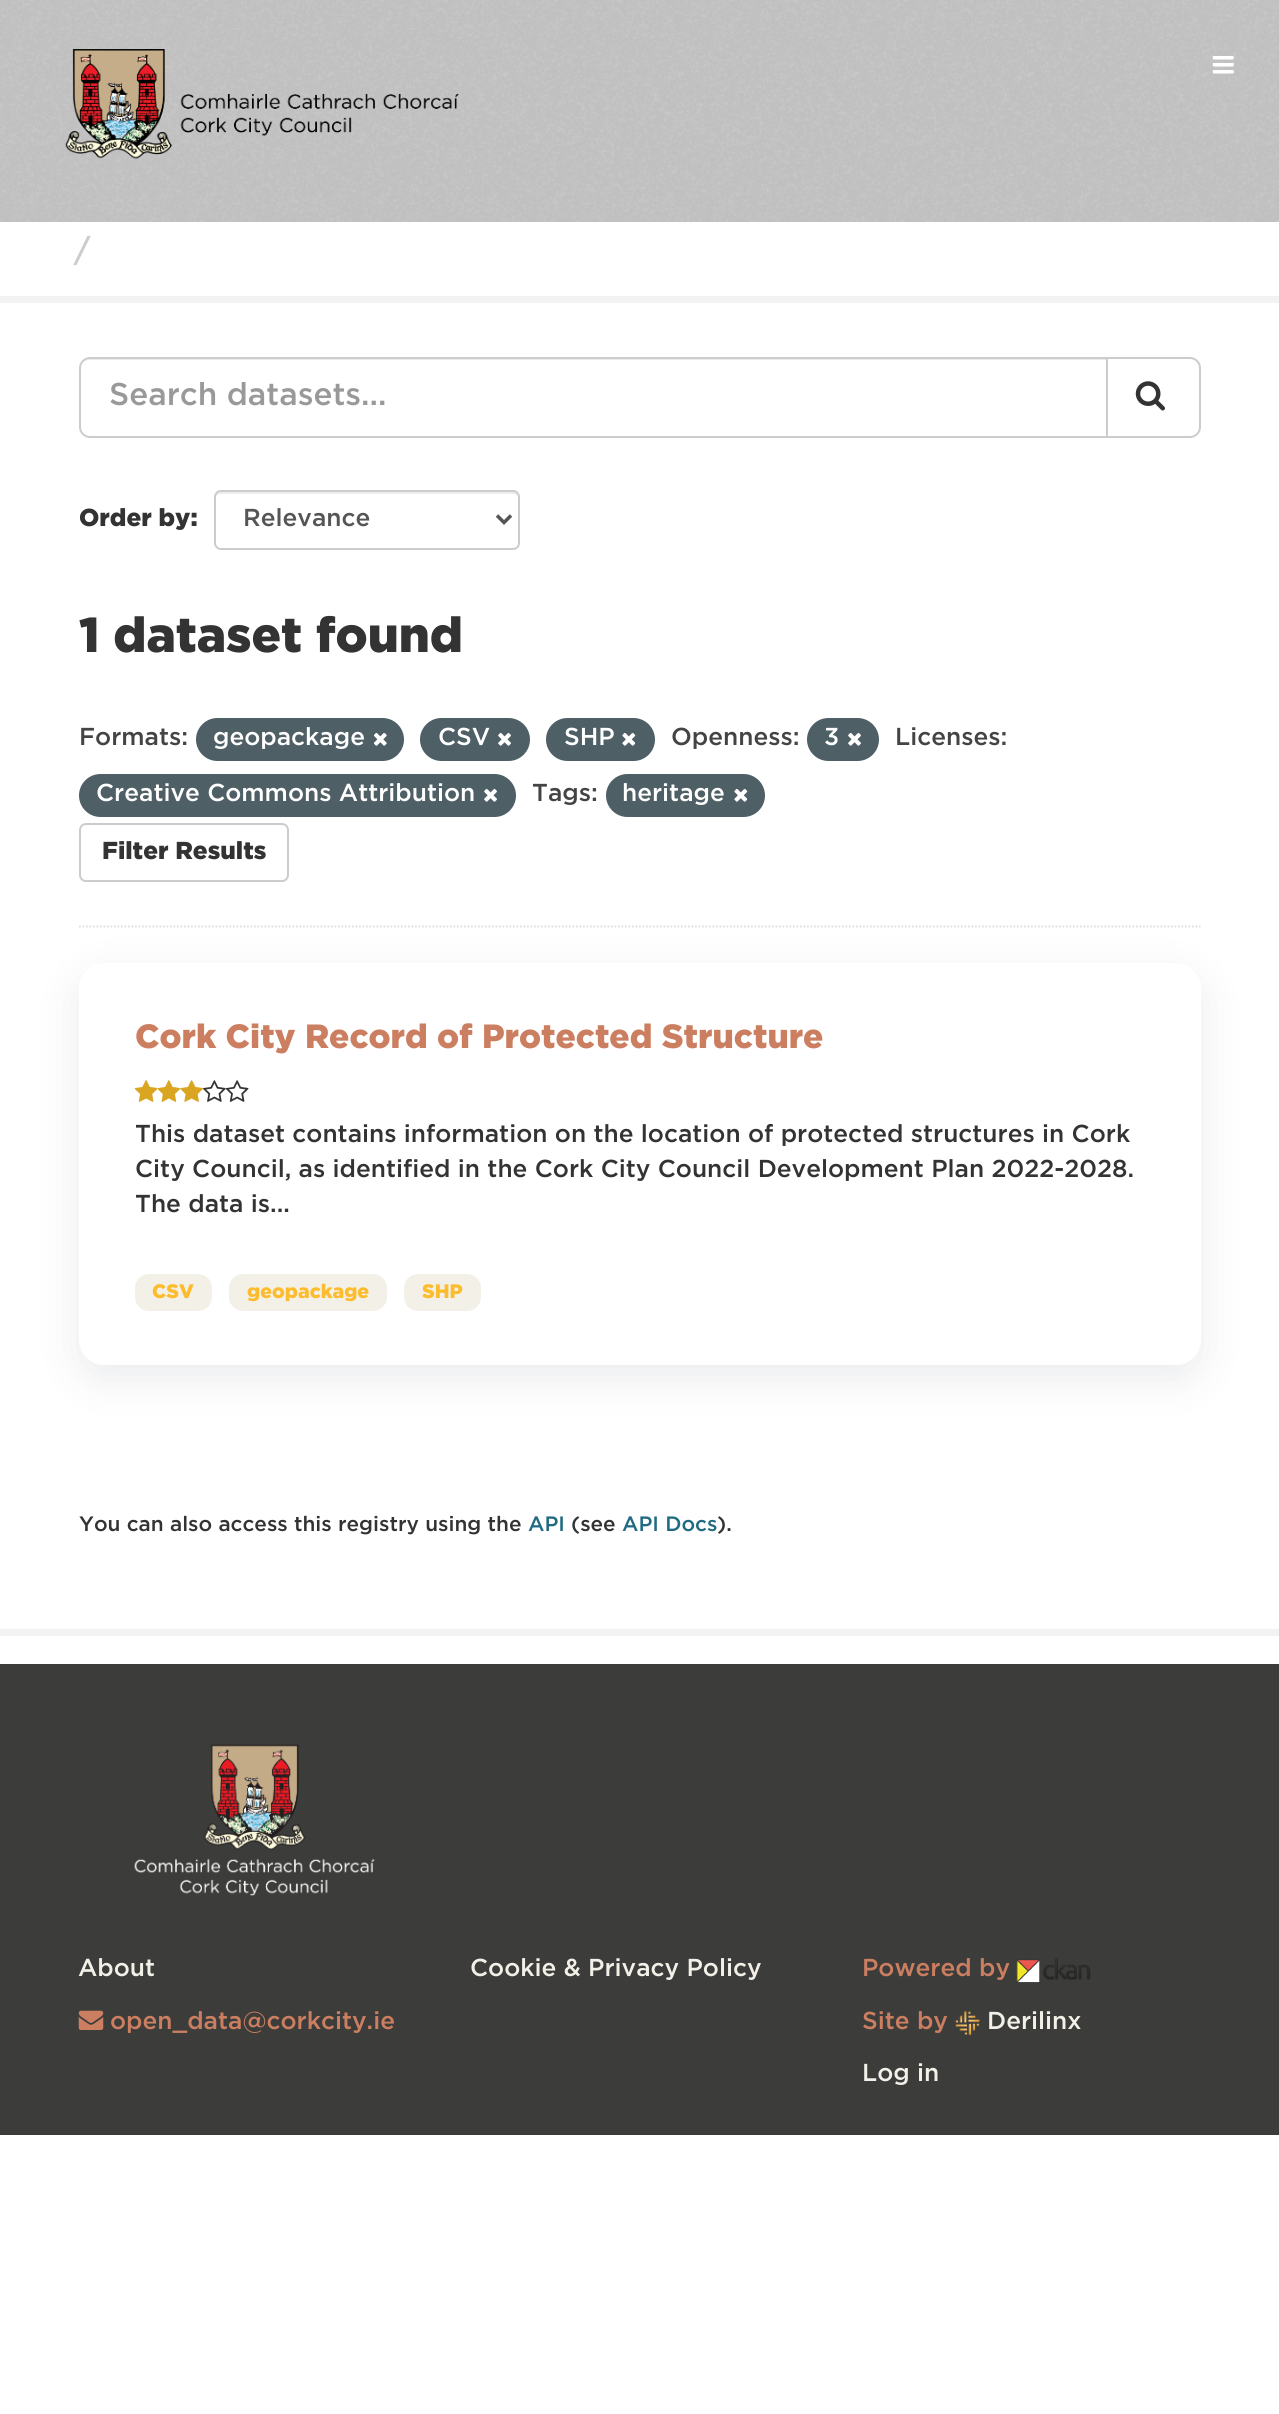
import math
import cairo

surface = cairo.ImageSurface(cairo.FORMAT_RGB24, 1279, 2414)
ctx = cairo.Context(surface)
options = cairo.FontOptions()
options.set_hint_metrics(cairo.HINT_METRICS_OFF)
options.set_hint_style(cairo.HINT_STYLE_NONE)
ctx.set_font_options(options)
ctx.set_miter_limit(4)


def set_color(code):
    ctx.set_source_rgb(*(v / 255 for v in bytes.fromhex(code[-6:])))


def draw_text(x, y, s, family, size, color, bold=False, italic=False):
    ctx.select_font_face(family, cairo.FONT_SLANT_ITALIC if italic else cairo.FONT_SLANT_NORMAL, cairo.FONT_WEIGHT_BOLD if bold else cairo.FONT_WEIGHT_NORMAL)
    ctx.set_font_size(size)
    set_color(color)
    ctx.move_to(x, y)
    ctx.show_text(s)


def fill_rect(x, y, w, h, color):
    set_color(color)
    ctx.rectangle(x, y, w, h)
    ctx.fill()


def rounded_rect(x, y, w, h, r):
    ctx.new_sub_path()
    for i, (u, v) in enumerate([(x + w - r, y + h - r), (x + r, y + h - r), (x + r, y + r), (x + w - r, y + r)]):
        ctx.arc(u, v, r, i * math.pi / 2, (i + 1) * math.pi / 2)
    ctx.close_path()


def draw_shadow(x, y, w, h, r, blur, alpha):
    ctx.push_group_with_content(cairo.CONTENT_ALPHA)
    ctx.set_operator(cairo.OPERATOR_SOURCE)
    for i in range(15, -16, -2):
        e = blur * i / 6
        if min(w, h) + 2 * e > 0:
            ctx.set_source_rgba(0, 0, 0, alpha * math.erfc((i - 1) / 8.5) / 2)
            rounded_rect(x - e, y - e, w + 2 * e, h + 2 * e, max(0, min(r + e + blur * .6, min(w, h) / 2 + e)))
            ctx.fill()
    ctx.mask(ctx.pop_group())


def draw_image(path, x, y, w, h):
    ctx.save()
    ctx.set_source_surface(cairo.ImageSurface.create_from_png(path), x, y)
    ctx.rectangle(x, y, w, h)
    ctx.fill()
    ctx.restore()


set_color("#ffffff")
ctx.paint()
fill_rect(0, 0, 1279, 222, "#c6c6c6")
draw_image("assets/img1.png", 0, 0, 1279, 222)
draw_image("assets/img2.png", 65, 49, 394, 110)
draw_image("assets/img3.png", 1212, 56, 22, 18)
draw_text(74, 261, "/", "Gotham Medium", 31.5, "#cccccc")
ctx.rectangle(-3.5, 299.5, 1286, 1333)
set_color("#f2f2f2")
ctx.set_line_width(7)
ctx.stroke()
ctx.new_path()
ctx.move_to(79, 926.5)
ctx.line_to(1200.5, 926.5)
set_color("#dddddd")
ctx.set_line_width(1.8)
ctx.set_dash([1.75, 1.75])
ctx.stroke()
set_color("#ececec")
ctx.new_path()
ctx.move_to(89, 360)
ctx.line_to(1106, 360)
ctx.line_to(1106, 359)
ctx.line_to(90, 359)
ctx.curve_to(87, 359, 85, 360, 83, 362)
ctx.curve_to(85, 361, 87, 360, 89, 360)
ctx.close_path()
ctx.fill()
ctx.new_path()
ctx.move_to(90, 358)
ctx.line_to(1107, 358)
ctx.line_to(1107, 437)
ctx.line_to(90, 437)
ctx.curve_to(84.5, 437, 80, 432.5, 80, 427)
ctx.line_to(80, 368)
ctx.curve_to(80, 362.5, 84.5, 358, 90, 358)
ctx.close_path()
set_color("#cccccc")
ctx.set_line_width(2)
ctx.set_dash([])
ctx.stroke()
draw_text(109, 405, "Search datasets...", "Gotham Medium", 31.5, "#999999")
set_color("#ffffff")
ctx.new_path()
ctx.move_to(1107, 358)
ctx.line_to(1190, 358)
ctx.curve_to(1195.5, 358, 1200, 362.5, 1200, 368)
ctx.line_to(1200, 427)
ctx.curve_to(1200, 432.5, 1195.5, 437, 1190, 437)
ctx.line_to(1107, 437)
ctx.close_path()
ctx.fill_preserve()
set_color("#cccccc")
ctx.stroke()
draw_image("assets/img4.png", 1135, 381, 30, 30)
draw_text(79, 526, "Order by:", "Gotham Black", 24.5, "#333333")
set_color("#ececec")
ctx.new_path()
ctx.move_to(220, 494)
ctx.line_to(513, 494)
ctx.curve_to(516, 494, 518, 496, 518, 499)
ctx.curve_to(518, 496, 517, 492, 513, 492)
ctx.line_to(220, 492)
ctx.curve_to(216, 492, 215, 496, 215, 499)
ctx.curve_to(215, 496, 218, 494, 220, 494)
ctx.close_path()
ctx.fill()
rounded_rect(215, 491, 304, 58, 6)
set_color("#cccccc")
ctx.stroke()
ctx.new_path()
ctx.move_to(497, 515.5)
ctx.line_to(504, 522.5)
ctx.line_to(511, 515.5)
set_color("#555555")
ctx.set_line_width(3.5)
ctx.stroke()
draw_text(243, 526, "Relevance", "Gotham Medium", 24.5, "#555555")
draw_text(79, 652, "1 dataset found", "Gotham Black", 49, "#333333")
draw_text(79, 745, "Formats:", "Gotham Medium", 24.5, "#444444")
set_color("#4e5f65")
rounded_rect(196, 718, 208, 43, 21.5)
ctx.fill()
draw_text(213, 745, "geopackage", "Gotham Medium", 24.5, "#ffffff")
draw_image("assets/img5.png", 373, 732, 14, 14)
set_color("#4e5f65")
rounded_rect(420, 718, 110, 43, 21.5)
ctx.fill()
draw_text(438, 745, "CSV", "Gotham Medium", 24.5, "#ffffff")
draw_image("assets/img6.png", 498, 732, 13, 14)
set_color("#4e5f65")
rounded_rect(546, 718, 109, 43, 21.5)
ctx.fill()
draw_text(564, 745, "SHP", "Gotham Medium", 24.5, "#ffffff")
draw_image("assets/img7.png", 622, 732, 14, 14)
draw_text(671, 745, "Openness:", "Gotham Medium", 24.5, "#444444")
set_color("#4e5f65")
rounded_rect(807, 718, 72, 43, 21.5)
ctx.fill()
draw_text(824, 745, "3", "Gotham Medium", 24.5, "#ffffff")
draw_image("assets/img6.png", 848, 732, 13, 14)
draw_text(895, 745, "Licenses:", "Gotham Medium", 24.5, "#444444")
set_color("#4e5f65")
rounded_rect(79, 774, 437, 43, 21.5)
ctx.fill()
draw_text(96, 801, "Creative Commons Attribution", "Gotham Medium", 24.5, "#ffffff")
draw_image("assets/img6.png", 484, 788, 13, 14)
draw_text(532, 801, "Tags:", "Gotham Medium", 24.5, "#444444")
set_color("#4e5f65")
rounded_rect(606, 774, 159, 43, 21.5)
ctx.fill()
draw_text(622, 801, "heritage", "Gotham Medium", 24.5, "#ffffff")
draw_image("assets/img7.png", 734, 788, 14, 14)
rounded_rect(80, 824, 208, 57, 6)
set_color("#cccccc")
ctx.set_line_width(2)
ctx.stroke()
draw_text(102, 859, "Filter Results", "Gotham Black", 24.5, "#333333")
set_color("#959da5")
draw_shadow(79, 977, 1122, 402, 25, 21, 0.2)
set_color("#ffffff")
rounded_rect(79, 963, 1122, 402, 25)
ctx.fill()
draw_text(135, 1048, "Cork City Record of Protected Structure", "Gotham Black", 33.6, "#cc7f60")
draw_image("assets/img8.png", 134, 1080, 24, 22)
draw_image("assets/img9.png", 157, 1080, 24, 22)
draw_image("assets/img10.png", 180, 1080, 23, 22)
draw_image("assets/img11.png", 203, 1080, 23, 22)
draw_image("assets/img12.png", 225, 1080, 24, 22)
draw_text(135, 1142, "This dataset contains information on the location of protected structures in Cork", "Gotham Medium", 24.5, "#333333")
draw_text(135, 1177, "City Council, as identified in the Cork City Council Development Plan 2022-2028.", "Gotham Medium", 24.5, "#333333")
draw_text(135, 1212, "The data is...", "Gotham Medium", 24.5, "#333333")
set_color("#f3f0e8")
rounded_rect(135, 1274, 77, 37, 14)
ctx.fill()
draw_text(152, 1298, "CSV", "Gotham Black", 19.5, "#fdbc2e")
set_color("#f3f0e8")
rounded_rect(229, 1274, 158, 37, 14)
ctx.fill()
draw_text(247, 1298, "geopackage", "Gotham Black", 19.5, "#fdbc2e")
set_color("#f3f0e8")
rounded_rect(404, 1274, 77, 37, 14)
ctx.fill()
draw_text(422, 1298, "SHP", "Gotham Black", 19.5, "#fdbc2e")
draw_text(79, 1531, "You can also access this registry using the", "Gotham Medium", 20.8, "#333333")
draw_text(528, 1531, "API", "Gotham Medium", 20.8, "#206b82")
draw_text(571, 1531, "(see", "Gotham Medium", 20.8, "#333333")
draw_text(622, 1531, "API Docs", "Gotham Medium", 20.8, "#206b82")
draw_text(717, 1531, ").", "Gotham Medium", 20.8, "#333333")
fill_rect(0, 1664, 1279, 471, "#3c3c3b")
draw_image("assets/img13.png", 134, 1744, 241, 152)
draw_text(78, 1976, "About", "Gotham Medium", 24.5, "#f3f0e8")
draw_image("assets/img14.png", 78, 2010, 26, 20)
draw_text(110, 2029, "open_data@corkcity.ie", "Gotham Medium", 24.5, "#cc7f60")
draw_text(470, 1976, "Cookie & Privacy Policy", "Gotham Medium", 24.5, "#f3f0e8")
draw_text(862, 1976, "Powered by", "Gotham Medium", 24.5, "#cc7f60")
draw_image("assets/img15.png", 1016, 1958, 75, 25)
draw_text(862, 2029, "Site by", "Gotham Medium", 24.5, "#cc7f60")
draw_image("assets/img16.png", 955, 2010, 25, 26)
draw_text(987, 2029, "Derilinx", "Gotham Medium", 24.5, "#f3f0e8")
draw_text(862, 2081, "Log in", "Gotham Medium", 24.5, "#f3f0e8")
surface.write_to_png("output.png")
